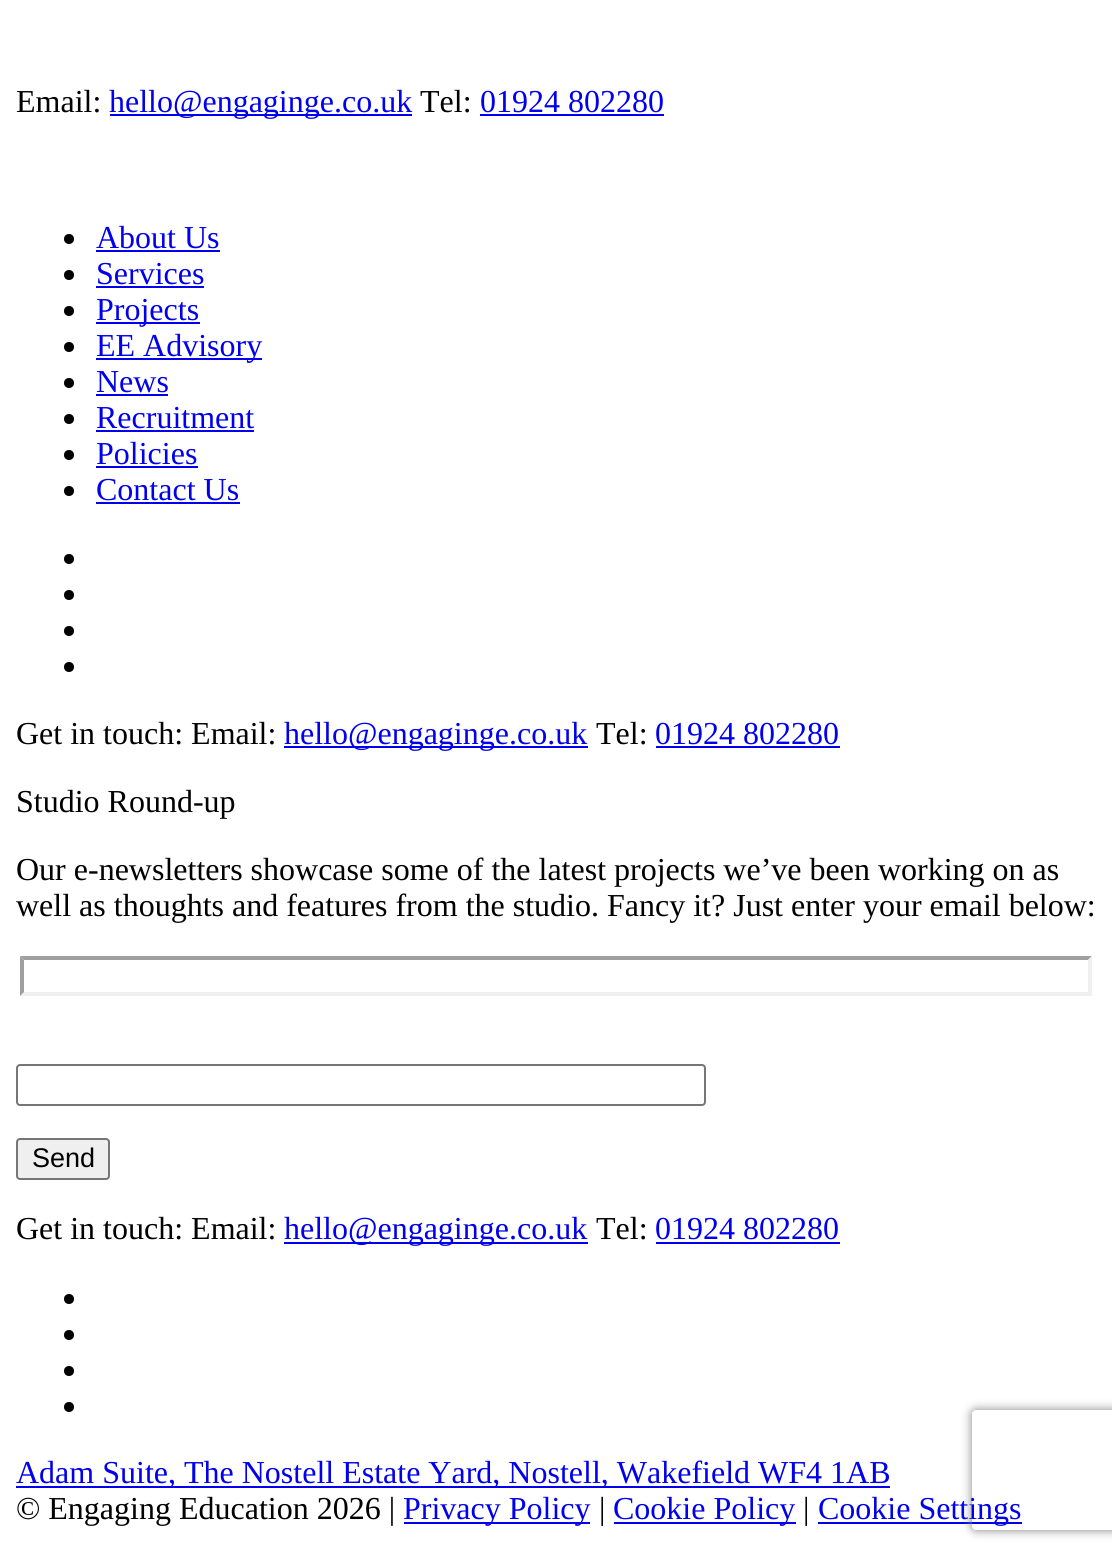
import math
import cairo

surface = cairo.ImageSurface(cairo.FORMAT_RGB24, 1112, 1558)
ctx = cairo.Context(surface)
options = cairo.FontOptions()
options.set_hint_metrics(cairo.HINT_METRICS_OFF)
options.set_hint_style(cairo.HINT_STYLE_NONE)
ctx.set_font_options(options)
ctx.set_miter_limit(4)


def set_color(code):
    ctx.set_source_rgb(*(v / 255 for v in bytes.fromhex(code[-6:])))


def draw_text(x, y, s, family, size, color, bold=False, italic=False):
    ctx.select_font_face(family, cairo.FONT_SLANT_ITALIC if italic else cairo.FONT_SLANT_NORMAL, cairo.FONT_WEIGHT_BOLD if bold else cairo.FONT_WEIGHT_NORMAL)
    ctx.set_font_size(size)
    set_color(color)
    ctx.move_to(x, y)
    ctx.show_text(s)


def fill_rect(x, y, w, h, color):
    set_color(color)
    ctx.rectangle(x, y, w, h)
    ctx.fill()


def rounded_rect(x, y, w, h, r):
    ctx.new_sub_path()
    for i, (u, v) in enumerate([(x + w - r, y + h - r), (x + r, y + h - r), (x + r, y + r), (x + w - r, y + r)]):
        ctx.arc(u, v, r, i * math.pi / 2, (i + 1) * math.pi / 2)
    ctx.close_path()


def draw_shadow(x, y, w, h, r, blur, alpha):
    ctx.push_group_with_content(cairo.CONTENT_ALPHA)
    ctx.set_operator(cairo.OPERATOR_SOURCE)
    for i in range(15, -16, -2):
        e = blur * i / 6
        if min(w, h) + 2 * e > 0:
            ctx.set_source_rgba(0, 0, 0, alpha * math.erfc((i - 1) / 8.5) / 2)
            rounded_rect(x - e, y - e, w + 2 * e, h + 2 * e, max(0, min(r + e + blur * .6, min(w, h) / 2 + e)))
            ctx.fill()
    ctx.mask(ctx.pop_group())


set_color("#ffffff")
ctx.paint()
draw_text(16, 112, "Email:", "Liberation Serif", 32, "#000000")
fill_rect(110, 114, 302, 2, "#0000ee")
draw_text(109, 112, "hello@engaginge.co.uk", "Liberation Serif", 32, "#0000ee")
draw_text(420, 112, "Tel:", "Liberation Serif", 32, "#000000")
draw_text(480, 112, "01924 802280", "Liberation Serif", 32, "#0000ee")
fill_rect(480, 114, 184, 2, "#0000ee")
set_color("#000000")
ctx.new_path()
ctx.arc(69, 239, 5, 0, 2 * math.pi)
ctx.fill()
draw_text(96, 248, "About Us", "Liberation Serif", 32, "#0000ee")
fill_rect(96, 250, 124, 2, "#0000ee")
set_color("#000000")
ctx.new_path()
ctx.arc(69, 275, 5, 0, 2 * math.pi)
ctx.fill()
draw_text(96, 284, "Services", "Liberation Serif", 32, "#0000ee")
fill_rect(96, 286, 108, 2, "#0000ee")
set_color("#000000")
ctx.new_path()
ctx.arc(69, 311, 5, 0, 2 * math.pi)
ctx.fill()
fill_rect(96, 322, 104, 2, "#0000ee")
draw_text(96, 320, "Projects", "Liberation Serif", 32, "#0000ee")
set_color("#000000")
ctx.new_path()
ctx.arc(69, 347, 5, 0, 2 * math.pi)
ctx.fill()
fill_rect(96, 358, 166, 2, "#0000ee")
draw_text(96, 356, "EE Advisory", "Liberation Serif", 32, "#0000ee")
set_color("#000000")
ctx.new_path()
ctx.arc(69, 383, 5, 0, 2 * math.pi)
ctx.fill()
draw_text(96, 392, "News", "Liberation Serif", 32, "#0000ee")
fill_rect(96, 394, 72, 2, "#0000ee")
set_color("#000000")
ctx.new_path()
ctx.arc(69, 419, 5, 0, 2 * math.pi)
ctx.fill()
draw_text(96, 428, "Recruitment", "Liberation Serif", 32, "#0000ee")
fill_rect(96, 430, 158, 2, "#0000ee")
set_color("#000000")
ctx.new_path()
ctx.arc(69, 455, 5, 0, 2 * math.pi)
ctx.fill()
draw_text(96, 464, "Policies", "Liberation Serif", 32, "#0000ee")
fill_rect(96, 466, 102, 2, "#0000ee")
set_color("#000000")
ctx.new_path()
ctx.arc(69, 491, 5, 0, 2 * math.pi)
ctx.fill()
draw_text(96, 500, "Contact Us", "Liberation Serif", 32, "#0000ee")
fill_rect(96, 502, 144, 2, "#0000ee")
set_color("#000000")
ctx.new_path()
ctx.arc(69, 559, 5, 0, 2 * math.pi)
ctx.fill()
ctx.arc(69, 595, 5, 0, 2 * math.pi)
ctx.fill()
ctx.arc(69, 631, 5, 0, 2 * math.pi)
ctx.fill()
ctx.arc(69, 667, 5, 0, 2 * math.pi)
ctx.fill()
draw_text(16, 744, "Get in touch: Email:", "Liberation Serif", 32, "#000000")
fill_rect(284, 746, 304, 2, "#0000ee")
draw_text(284, 744, "hello@engaginge.co.uk", "Liberation Serif", 32, "#0000ee")
draw_text(596, 744, "Tel:", "Liberation Serif", 32, "#000000")
draw_text(655, 744, "01924 802280", "Liberation Serif", 32, "#0000ee")
fill_rect(656, 746, 184, 2, "#0000ee")
draw_text(16, 812, "Studio Round-up", "Liberation Serif", 32, "#000000")
draw_text(16, 880, "Our e-newsletters showcase some of the latest projects we’ve been working on as", "Liberation Serif", 32, "#000000")
draw_text(16, 916, "well as thoughts and features from the studio. Fancy it? Just enter your email below:", "Liberation Serif", 32, "#000000")
set_color("#9f9f9f")
ctx.new_path()
ctx.move_to(20, 956)
ctx.line_to(1092, 956)
ctx.line_to(1088, 960)
ctx.line_to(24, 960)
ctx.close_path()
ctx.fill()
set_color("#efefef")
ctx.new_path()
ctx.move_to(1092, 956)
ctx.line_to(1092, 996)
ctx.line_to(1088, 992)
ctx.line_to(1088, 960)
ctx.close_path()
ctx.fill()
ctx.new_path()
ctx.move_to(1092, 996)
ctx.line_to(20, 996)
ctx.line_to(24, 992)
ctx.line_to(1088, 992)
ctx.close_path()
ctx.fill()
set_color("#9f9f9f")
ctx.new_path()
ctx.move_to(20, 996)
ctx.line_to(20, 956)
ctx.line_to(24, 960)
ctx.line_to(24, 992)
ctx.close_path()
ctx.fill()
rounded_rect(17, 1065, 688, 40, 3)
set_color("#767676")
ctx.stroke()
set_color("#efefef")
rounded_rect(17, 1139, 92, 40, 3)
ctx.fill_preserve()
set_color("#767676")
ctx.stroke()
draw_text(32, 1167, "Send", "Liberation Sans", 27, "#000000")
draw_text(16, 1239, "Get in touch: Email:", "Liberation Serif", 32, "#000000")
fill_rect(284, 1242, 304, 2, "#0000ee")
draw_text(284, 1239, "hello@engaginge.co.uk", "Liberation Serif", 32, "#0000ee")
draw_text(596, 1239, "Tel:", "Liberation Serif", 32, "#000000")
draw_text(655, 1239, "01924 802280", "Liberation Serif", 32, "#0000ee")
fill_rect(656, 1242, 184, 2, "#0000ee")
set_color("#000000")
ctx.new_path()
ctx.arc(69, 1299, 5, 0, 2 * math.pi)
ctx.fill()
ctx.arc(69, 1335, 5, 0, 2 * math.pi)
ctx.fill()
ctx.arc(69, 1371, 5, 0, 2 * math.pi)
ctx.fill()
ctx.arc(69, 1407, 5, 0, 2 * math.pi)
ctx.fill()
fill_rect(16, 1486, 874, 2, "#0000ee")
draw_text(16, 1483, "Adam Suite, The Nostell Estate Yard, Nostell, Wakefield WF4 1AB", "Liberation Serif", 32, "#0000ee")
draw_text(16, 1519, "© Engaging Education 2026 |", "Liberation Serif", 32, "#000000")
fill_rect(404, 1522, 186, 2, "#0000ee")
draw_text(403, 1519, "Privacy Policy", "Liberation Serif", 32, "#0000ee")
draw_text(599, 1519, "|", "Liberation Serif", 32, "#000000")
fill_rect(614, 1522, 182, 2, "#0000ee")
draw_text(613, 1519, "Cookie Policy", "Liberation Serif", 32, "#0000ee")
draw_text(803, 1519, "|", "Liberation Serif", 32, "#000000")
fill_rect(818, 1522, 204, 2, "#0000ee")
draw_text(818, 1519, "Cookie Settings", "Liberation Serif", 32, "#0000ee")
ctx.save()
ctx.set_fill_rule(cairo.FILL_RULE_EVEN_ODD)
ctx.new_path()
ctx.move_to(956, 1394)
ctx.line_to(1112, 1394)
ctx.line_to(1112, 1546)
ctx.line_to(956, 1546)
ctx.close_path()
ctx.move_to(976, 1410)
ctx.line_to(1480, 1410)
ctx.curve_to(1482, 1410, 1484, 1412, 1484, 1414)
ctx.line_to(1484, 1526)
ctx.curve_to(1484, 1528, 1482, 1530, 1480, 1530)
ctx.line_to(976, 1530)
ctx.curve_to(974, 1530, 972, 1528, 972, 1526)
ctx.line_to(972, 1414)
ctx.curve_to(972, 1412, 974, 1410, 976, 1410)
ctx.close_path()
ctx.clip()
set_color("#808080")
draw_shadow(972, 1410, 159, 120, 4, 5, 1)
ctx.restore()
surface.write_to_png("output.png")
